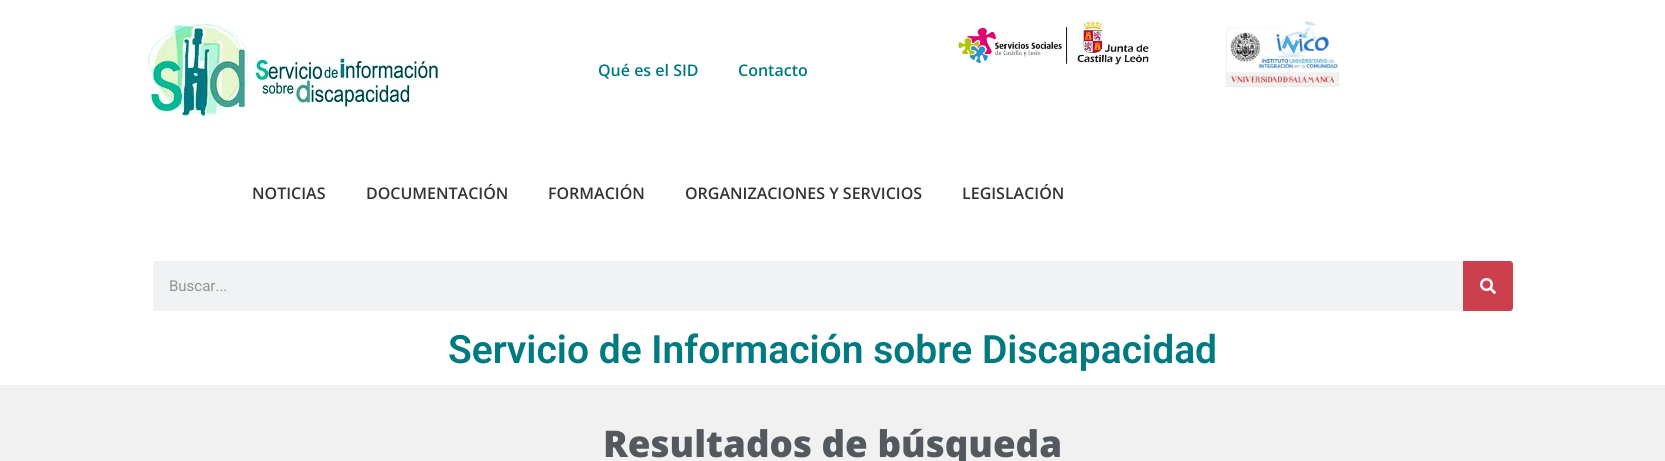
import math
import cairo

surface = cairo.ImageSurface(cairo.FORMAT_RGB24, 1665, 461)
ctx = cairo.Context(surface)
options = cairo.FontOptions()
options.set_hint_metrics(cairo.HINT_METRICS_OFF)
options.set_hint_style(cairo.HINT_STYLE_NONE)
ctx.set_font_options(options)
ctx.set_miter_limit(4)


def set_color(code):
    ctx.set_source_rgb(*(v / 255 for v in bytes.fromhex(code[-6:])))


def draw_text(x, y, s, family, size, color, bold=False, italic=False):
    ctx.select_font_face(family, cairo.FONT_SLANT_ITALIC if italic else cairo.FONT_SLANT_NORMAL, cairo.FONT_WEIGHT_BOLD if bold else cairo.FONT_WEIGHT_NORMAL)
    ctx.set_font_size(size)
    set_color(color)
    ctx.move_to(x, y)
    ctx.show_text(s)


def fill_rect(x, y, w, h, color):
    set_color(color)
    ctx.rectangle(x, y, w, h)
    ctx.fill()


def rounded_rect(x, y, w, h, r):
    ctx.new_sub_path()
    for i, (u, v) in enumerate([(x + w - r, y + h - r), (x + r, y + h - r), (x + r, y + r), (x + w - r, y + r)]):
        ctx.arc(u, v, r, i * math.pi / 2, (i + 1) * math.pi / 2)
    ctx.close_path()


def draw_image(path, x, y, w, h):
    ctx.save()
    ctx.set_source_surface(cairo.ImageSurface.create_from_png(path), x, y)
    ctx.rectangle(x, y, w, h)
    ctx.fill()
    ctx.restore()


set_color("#ffffff")
ctx.paint()
draw_image("assets/img1.png", 145, 20, 295, 97)
draw_text(598, 76, "Qué es el SID", "Open Sans SemiBold", 16, "#007a81")
draw_text(738, 76, "Contacto", "Open Sans SemiBold", 16, "#007a81")
draw_image("assets/img2.png", 958, 20, 191, 45)
draw_image("assets/img3.png", 1225, 21, 115, 66)
draw_text(252, 199, "NOTICIAS", "Open Sans SemiBold", 16, "#333333")
draw_text(366, 199, "DOCUMENTACIÓN", "Open Sans SemiBold", 16, "#333333")
draw_text(548, 199, "FORMACIÓN", "Open Sans SemiBold", 16, "#333333")
draw_text(685, 199, "ORGANIZACIONES Y SERVICIOS", "Open Sans SemiBold", 16, "#333333")
draw_text(962, 199, "LEGISLACIÓN", "Open Sans SemiBold", 16, "#333333")
set_color("#f1f2f3")
rounded_rect(153, 261, 1360, 50, 3)
ctx.fill()
draw_text(169, 291, "Buscar...", "Roboto", 15, "#929393")
set_color("#cc404d")
ctx.new_path()
ctx.move_to(1463, 261)
ctx.line_to(1510, 261)
ctx.curve_to(1511.5, 261, 1513, 262.5, 1513, 264)
ctx.line_to(1513, 308)
ctx.curve_to(1513, 309.5, 1511.5, 311, 1510, 311)
ctx.line_to(1463, 311)
ctx.close_path()
ctx.fill()
draw_image("assets/img4.png", 1480, 278, 16, 16)
draw_text(448, 363, "Servicio de Información sobre Discapacidad", "Roboto SemiBold", 39, "#007a81")
fill_rect(0, 385, 1665, 76, "#f1f1f1")
draw_text(603, 457, "Resultados de búsqueda", "Open Sans ExtraBold", 36.75, "#54595f")
surface.write_to_png("output.png")
